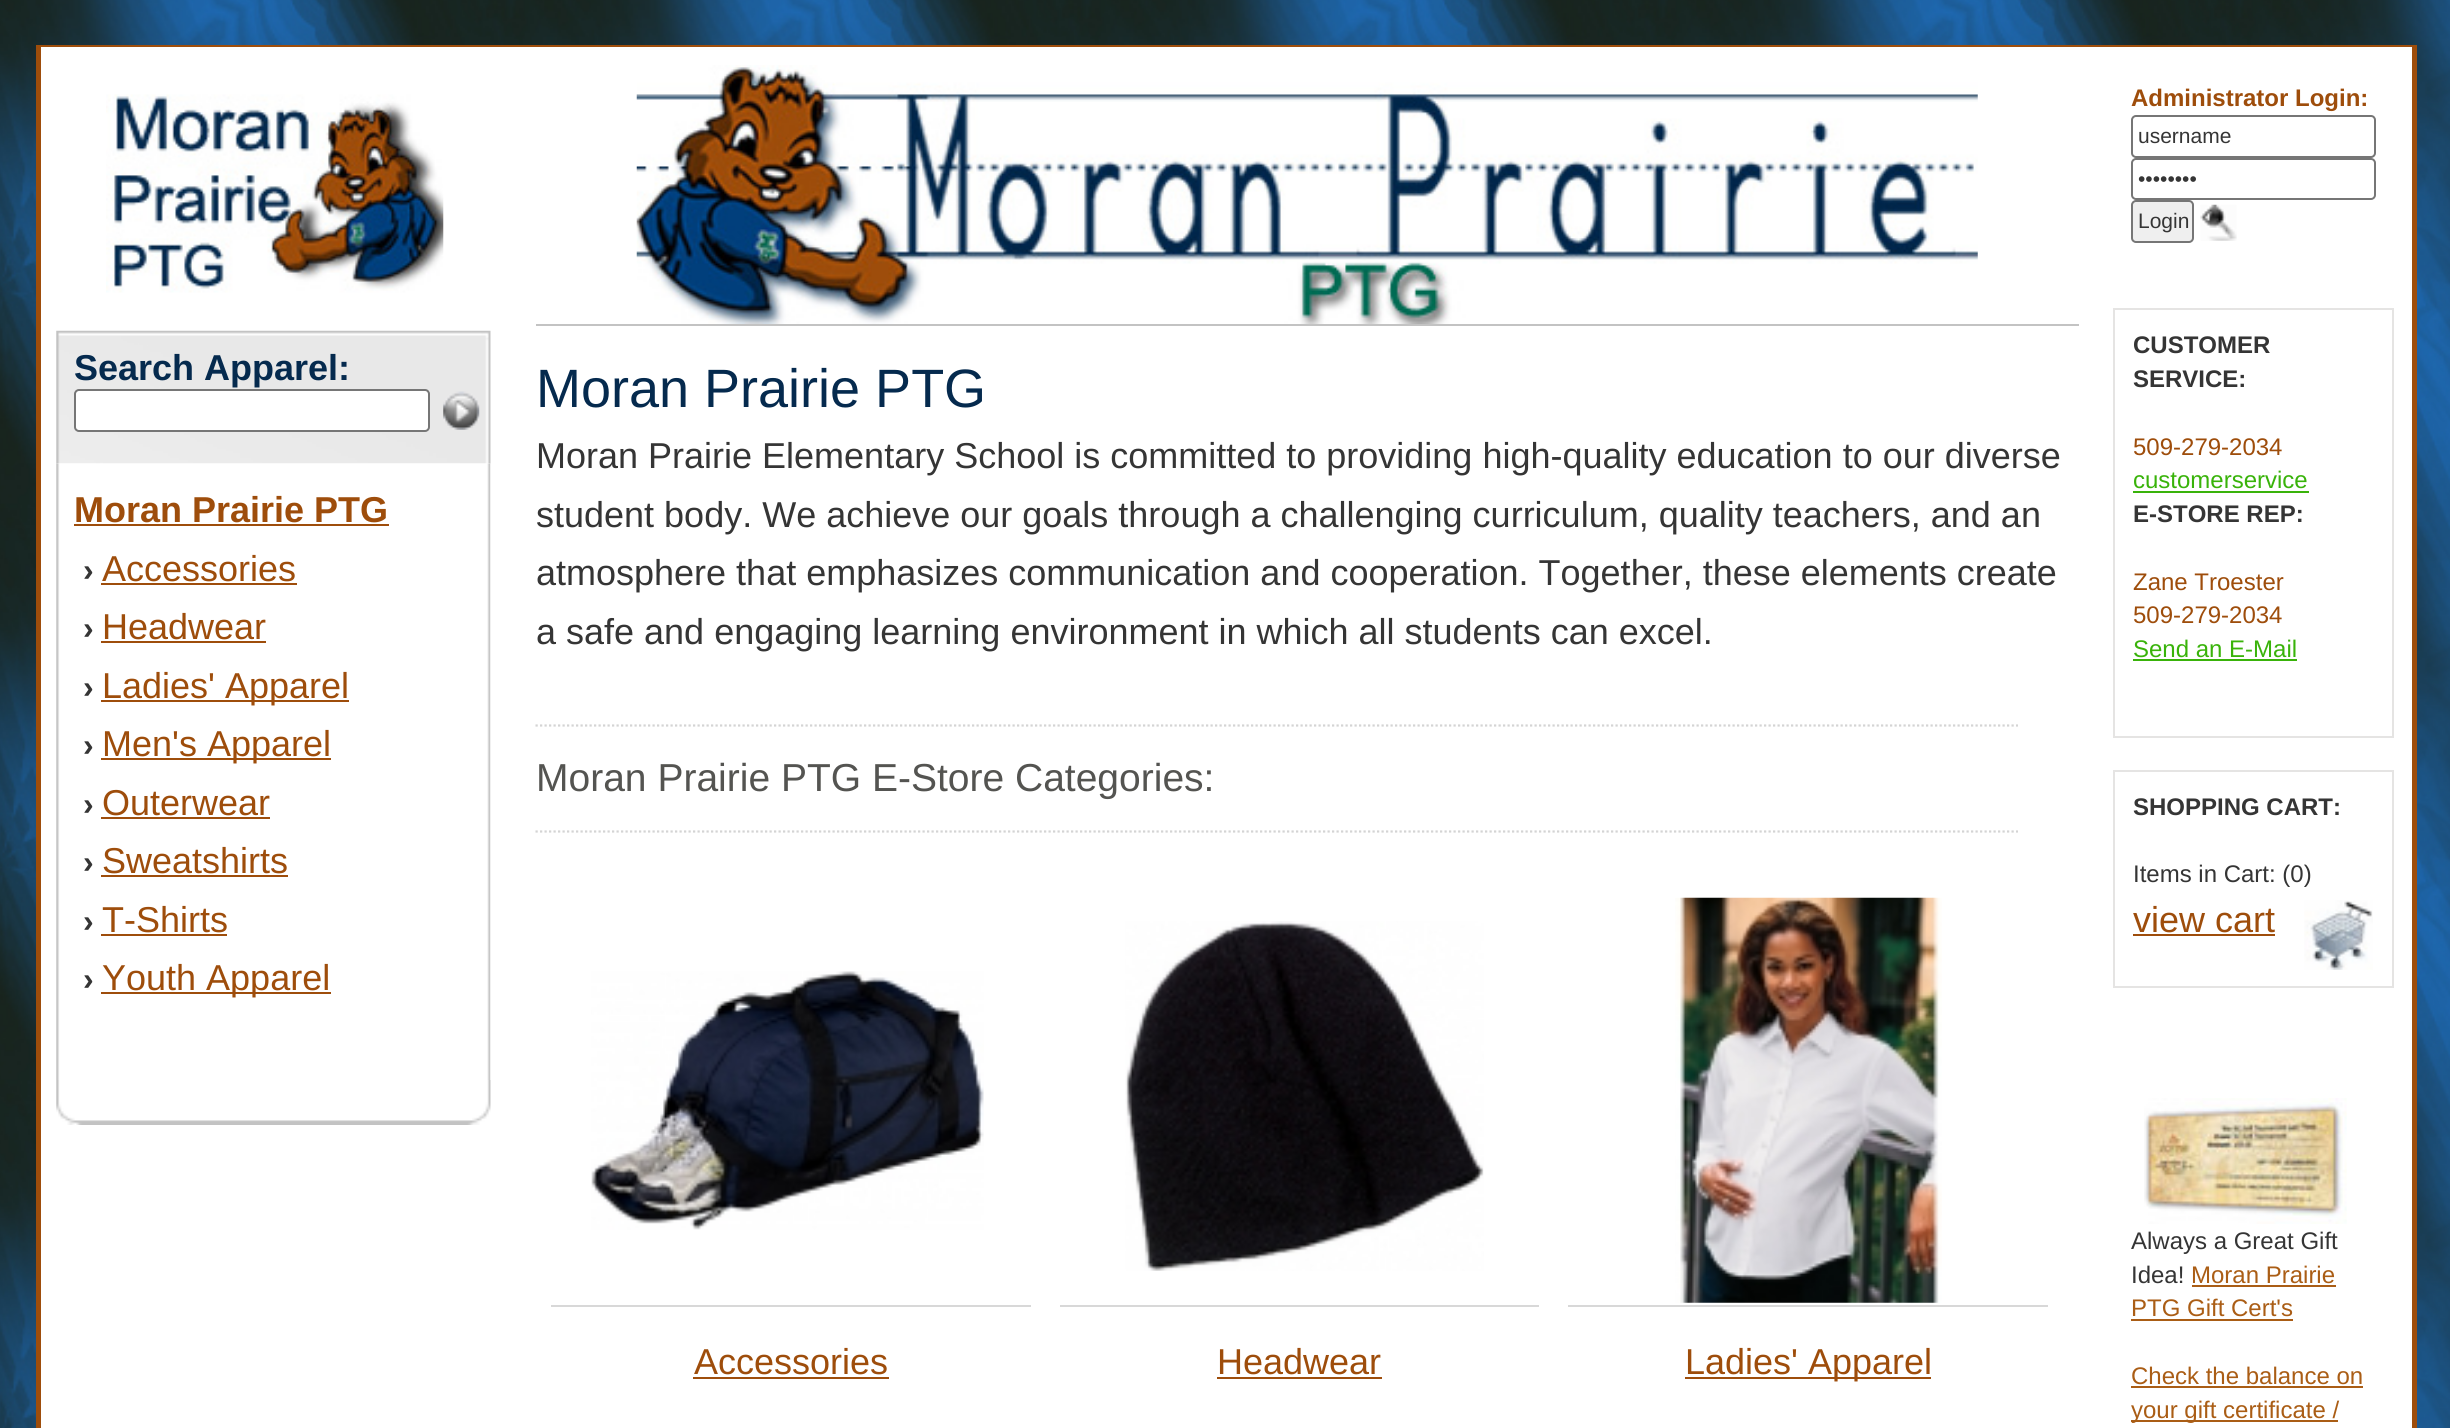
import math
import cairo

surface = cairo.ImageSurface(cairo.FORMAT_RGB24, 2450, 1428)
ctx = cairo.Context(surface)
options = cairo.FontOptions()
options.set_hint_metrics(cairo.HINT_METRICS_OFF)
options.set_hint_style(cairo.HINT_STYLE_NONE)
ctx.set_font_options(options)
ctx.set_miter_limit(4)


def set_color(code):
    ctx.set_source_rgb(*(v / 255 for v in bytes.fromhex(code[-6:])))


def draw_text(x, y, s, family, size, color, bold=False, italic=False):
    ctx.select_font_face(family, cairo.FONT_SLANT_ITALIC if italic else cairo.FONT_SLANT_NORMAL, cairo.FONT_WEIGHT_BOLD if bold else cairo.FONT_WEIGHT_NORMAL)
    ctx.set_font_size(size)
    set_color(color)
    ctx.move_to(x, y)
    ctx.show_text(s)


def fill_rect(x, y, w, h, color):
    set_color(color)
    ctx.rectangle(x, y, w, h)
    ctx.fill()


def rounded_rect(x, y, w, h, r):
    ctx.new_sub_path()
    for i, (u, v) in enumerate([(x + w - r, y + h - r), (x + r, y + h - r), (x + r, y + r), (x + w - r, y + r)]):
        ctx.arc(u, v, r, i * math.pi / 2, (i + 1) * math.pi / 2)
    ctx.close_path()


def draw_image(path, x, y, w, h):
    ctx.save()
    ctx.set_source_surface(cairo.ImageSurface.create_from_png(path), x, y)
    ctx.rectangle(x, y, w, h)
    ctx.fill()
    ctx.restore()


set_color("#ffffff")
ctx.paint()
draw_image("assets/img1.png", 0, 0, 2450, 1428)
fill_rect(41, 47, 2371, 1381, "#ffffff")
fill_rect(36, 45, 2381, 2, "#9e4d0b")
fill_rect(2412, 45, 5, 1383, "#9e4d0b")
fill_rect(36, 45, 5, 1383, "#9e4d0b")
draw_image("assets/img2.png", 106, 94, 338, 199)
draw_image("assets/img3.png", 56, 330, 435, 134)
draw_text(74, 380, "Search Apparel:", "Liberation Sans", 36, "#052a4e", bold=True)
set_color("#ffffff")
rounded_rect(75, 390, 354, 41, 4)
ctx.fill_preserve()
set_color("#767676")
ctx.stroke()
draw_image("assets/img4.png", 443, 391, 37, 39)
draw_image("assets/img5.png", 56, 463, 435, 617)
draw_text(74, 522, "Moran Prairie PTG", "Liberation Sans", 36, "#9e4d0b", bold=True)
fill_rect(74, 524, 315, 2, "#9e4d0b")
draw_text(83, 581, "›", "Liberation Sans", 32, "#353535", bold=True)
draw_text(102, 581, "Accessories", "Liberation Sans", 36, "#9e4d0b")
fill_rect(101, 583, 196, 2, "#9e4d0b")
draw_text(83, 639, "›", "Liberation Sans", 32, "#353535", bold=True)
draw_text(102, 639, "Headwear", "Liberation Sans", 36, "#9e4d0b")
fill_rect(101, 641, 165, 2, "#9e4d0b")
draw_text(83, 698, "›", "Liberation Sans", 32, "#353535", bold=True)
fill_rect(101, 700, 248, 2, "#9e4d0b")
draw_text(102, 698, "Ladies' Apparel", "Liberation Sans", 36, "#9e4d0b")
draw_text(83, 756, "›", "Liberation Sans", 32, "#353535", bold=True)
fill_rect(101, 758, 230, 2, "#9e4d0b")
draw_text(102, 756, "Men's Apparel", "Liberation Sans", 36, "#9e4d0b")
draw_text(83, 815, "›", "Liberation Sans", 32, "#353535", bold=True)
draw_text(102, 815, "Outerwear", "Liberation Sans", 36, "#9e4d0b")
fill_rect(101, 817, 169, 2, "#9e4d0b")
draw_text(83, 873, "›", "Liberation Sans", 32, "#353535", bold=True)
draw_text(102, 873, "Sweatshirts", "Liberation Sans", 36, "#9e4d0b")
fill_rect(101, 875, 187, 2, "#9e4d0b")
draw_text(83, 932, "›", "Liberation Sans", 32, "#353535", bold=True)
draw_text(102, 932, "T-Shirts", "Liberation Sans", 36, "#9e4d0b")
fill_rect(101, 934, 126, 2, "#9e4d0b")
draw_text(83, 990, "›", "Liberation Sans", 32, "#353535", bold=True)
fill_rect(101, 992, 230, 2, "#9e4d0b")
draw_text(102, 990, "Youth Apparel", "Liberation Sans", 36, "#9e4d0b")
draw_image("assets/img6.png", 56, 1080, 435, 45)
fill_rect(536, 324, 1543, 2, "#c3c3c3")
draw_image("assets/img7.png", 636, 65, 1342, 259)
draw_text(536, 407, "Moran Prairie PTG", "Liberation Sans", 54, "#052a4e")
draw_text(536, 468, "Moran Prairie Elementary School is committed to providing high-quality education to our diverse", "Liberation Sans", 36, "#353535")
draw_text(536, 527, "student body. We achieve our goals through a challenging curriculum, quality teachers, and an", "Liberation Sans", 36, "#353535")
draw_text(536, 585, "atmosphere that emphasizes communication and cooperation. Together, these elements create", "Liberation Sans", 36, "#353535")
draw_text(536, 644, "a safe and engaging learning environment in which all students can excel.", "Liberation Sans", 36, "#353535")
ctx.new_path()
ctx.move_to(535.5, 725.5)
ctx.line_to(2018, 725.5)
set_color("#d4d4d4")
ctx.set_line_width(2.2)
ctx.set_dash([2.25, 2.25])
ctx.stroke()
ctx.new_path()
ctx.move_to(535.5, 831.5)
ctx.line_to(2018, 831.5)
ctx.stroke()
draw_text(536, 791, "Moran Prairie PTG E-Store Categories:", "Liberation Sans", 39, "#545451")
draw_image("assets/img8.png", 591, 971, 393, 259)
fill_rect(551, 1305, 480, 2, "#d8d8d8")
draw_text(694, 1374, "Accessories", "Liberation Sans", 36, "#9e4d0b")
fill_rect(693, 1377, 196, 2, "#9e4d0b")
draw_image("assets/img9.png", 1125, 921, 359, 350)
fill_rect(1060, 1305, 479, 2, "#d8d8d8")
draw_text(1217, 1374, "Headwear", "Liberation Sans", 36, "#9e4d0b")
fill_rect(1217, 1377, 165, 2, "#9e4d0b")
draw_image("assets/img10.png", 1675, 897, 267, 406)
fill_rect(1568, 1305, 480, 2, "#d8d8d8")
fill_rect(1685, 1377, 246, 2, "#9e4d0b")
draw_text(1685, 1374, "Ladies' Apparel", "Liberation Sans", 36, "#9e4d0b")
draw_text(2131, 106, "Administrator Login:", "Liberation Sans", 24, "#9e4d0b", bold=True)
rounded_rect(2132, 116, 243, 41, 4)
set_color("#767676")
ctx.set_line_width(2)
ctx.set_dash([])
ctx.stroke()
draw_text(2138, 143, "username", "Liberation Sans", 21, "#353535")
rounded_rect(2132, 159, 243, 40, 4)
set_color("#767676")
ctx.stroke()
draw_text(2138, 186, "••••••••", "Liberation Sans", 21, "#353535")
set_color("#efefef")
rounded_rect(2132, 201, 61, 41, 4)
ctx.fill_preserve()
set_color("#767676")
ctx.stroke()
draw_text(2138, 228, "Login", "Liberation Sans", 21, "#353535")
draw_image("assets/img11.png", 2200, 204, 37, 37)
ctx.rectangle(2114, 309, 279, 428)
set_color("#e5e4e3")
ctx.stroke()
draw_text(2133, 353, "CUSTOMER", "Liberation Sans", 24, "#353535", bold=True)
draw_text(2133, 387, "SERVICE:", "Liberation Sans", 24, "#353535", bold=True)
draw_text(2133, 455, "509-279-2034", "Liberation Sans", 24, "#9e4d0b")
draw_text(2133, 488, "customerservice", "Liberation Sans", 24, "#39b30a")
fill_rect(2133, 491, 176, 2, "#39b30a")
draw_text(2133, 522, "E-STORE REP:", "Liberation Sans", 24, "#353535", bold=True)
draw_text(2133, 590, "Zane Troester", "Liberation Sans", 24, "#9e4d0b")
draw_text(2133, 623, "509-279-2034", "Liberation Sans", 24, "#9e4d0b")
draw_text(2133, 657, "Send an E-Mail", "Liberation Sans", 24, "#39b30a")
fill_rect(2133, 659, 164, 2, "#39b30a")
ctx.rectangle(2114, 771, 279, 216)
set_color("#e5e4e3")
ctx.stroke()
draw_text(2133, 815, "SHOPPING CART:", "Liberation Sans", 24, "#353535", bold=True)
draw_text(2133, 882, "Items in Cart: (0)", "Liberation Sans", 24, "#353535")
draw_text(2133, 932, "view cart", "Liberation Sans", 36, "#9e4d0b")
fill_rect(2133, 934, 142, 2, "#9e4d0b")
draw_image("assets/img12.png", 2304, 900, 69, 70)
draw_image("assets/img13.png", 2144, 1098, 203, 126)
draw_text(2131, 1249, "Always a Great Gift", "Liberation Sans", 24, "#353535")
draw_text(2131, 1283, "Idea!", "Liberation Sans", 24, "#353535")
draw_text(2191, 1283, "Moran Prairie", "Liberation Sans", 24, "#aa5d15")
fill_rect(2192, 1285, 144, 2, "#aa5d15")
draw_text(2131, 1316, "PTG Gift Cert's", "Liberation Sans", 24, "#aa5d15")
fill_rect(2131, 1319, 162, 2, "#aa5d15")
draw_text(2131, 1384, "Check the balance on", "Liberation Sans", 24, "#aa5d15")
fill_rect(2131, 1386, 232, 2, "#aa5d15")
fill_rect(2131, 1420, 207, 2, "#aa5d15")
draw_text(2131, 1418, "your gift certificate /", "Liberation Sans", 24, "#aa5d15")
surface.write_to_png("output.png")
